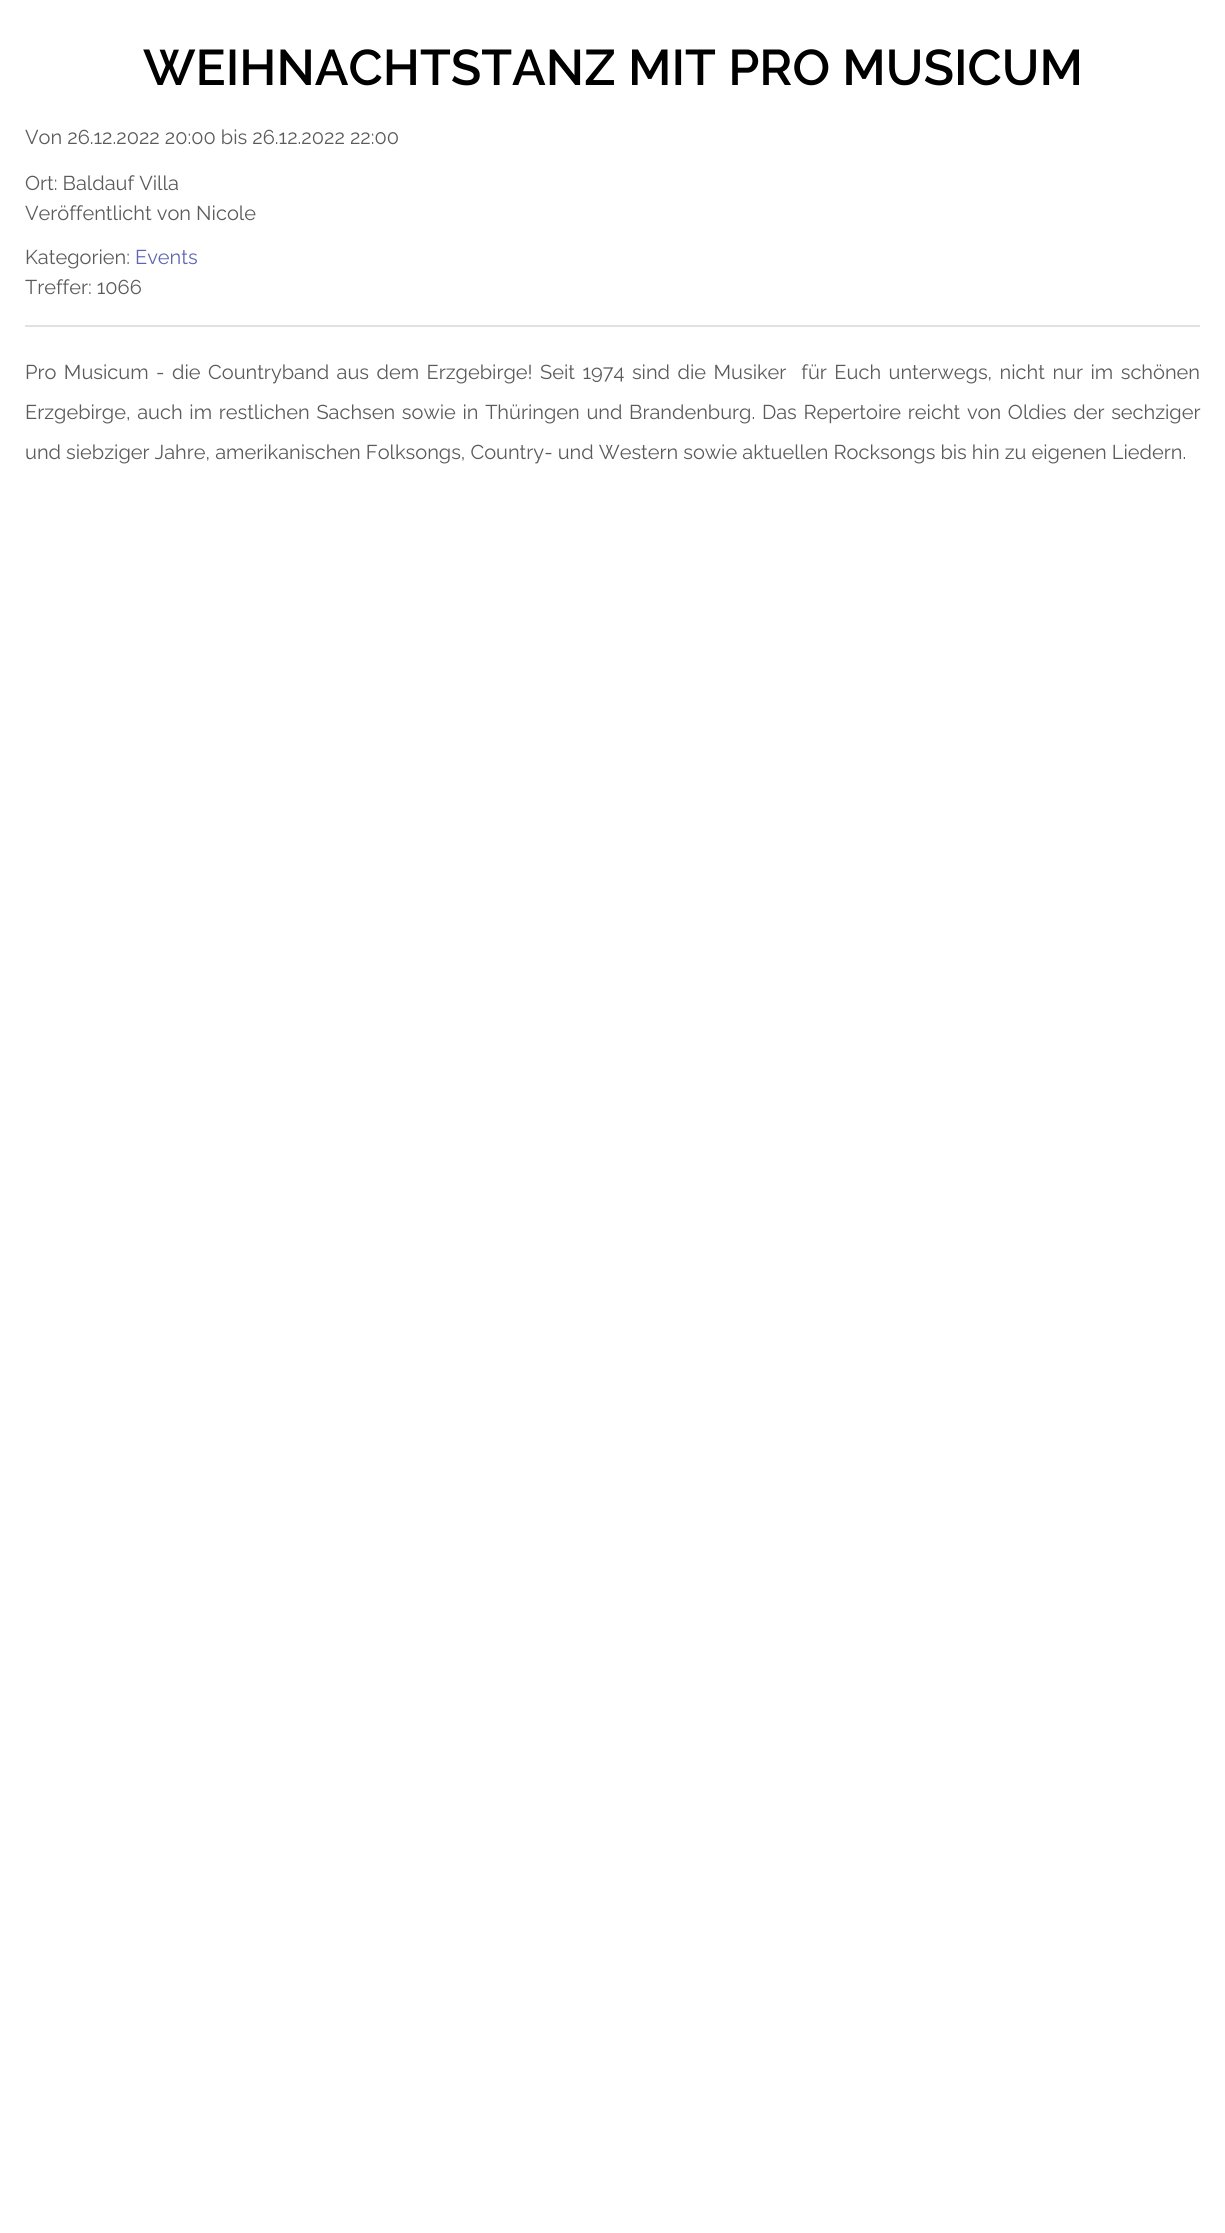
import math
import cairo

surface = cairo.ImageSurface(cairo.FORMAT_RGB24, 1225, 2233)
ctx = cairo.Context(surface)
options = cairo.FontOptions()
options.set_hint_metrics(cairo.HINT_METRICS_OFF)
options.set_hint_style(cairo.HINT_STYLE_NONE)
ctx.set_font_options(options)
ctx.set_miter_limit(4)


def set_color(code):
    ctx.set_source_rgb(*(v / 255 for v in bytes.fromhex(code[-6:])))


def draw_text(x, y, s, family, size, color, bold=False, italic=False):
    ctx.select_font_face(family, cairo.FONT_SLANT_ITALIC if italic else cairo.FONT_SLANT_NORMAL, cairo.FONT_WEIGHT_BOLD if bold else cairo.FONT_WEIGHT_NORMAL)
    ctx.set_font_size(size)
    set_color(color)
    ctx.move_to(x, y)
    ctx.show_text(s)


def draw_spaced(x, y, s, letter, word):
    ctx.move_to(x, y)
    for ch in s:
        ctx.show_text(ch)
        ctx.rel_move_to(letter + word * (ch == ' '), 0)


def fill_rect(x, y, w, h, color):
    set_color(color)
    ctx.rectangle(x, y, w, h)
    ctx.fill()


set_color("#ffffff")
ctx.paint()
draw_text(143, 85, "WEIHNACHTSTANZ MIT PRO MUSICUM", "Raleway SemiBold", 50, "#000000")
draw_text(25, 144, "Von 26.12.2022 20:00 bis 26.12.2022 22:00", "Raleway", 20, "#5c5a5a")
draw_text(25, 190, "Ort: Baldauf Villa", "Raleway", 20, "#5c5a5a")
draw_text(25, 220, "Veröffentlicht von Nicole", "Raleway", 20, "#5c5a5a")
draw_text(25, 264, "Kategorien:", "Raleway", 20, "#5c5a5a")
draw_text(135, 264, "Events", "Raleway", 20, "#5e66b1")
draw_text(25, 294, "Treffer: 1066", "Raleway", 20, "#5c5a5a")
fill_rect(25, 325, 1175, 2, "#e1e1e1")
set_color("#5c5a5a")
draw_spaced(25, 379, "Pro Musicum - die Countryband aus dem Erzgebirge! Seit 1974 sind die Musiker  für Euch unterwegs, nicht nur im schönen", 0, 2.4)
draw_spaced(25, 419, "Erzgebirge, auch im restlichen Sachsen sowie in Thüringen und Brandenburg. Das Repertoire reicht von Oldies der sechziger", 0, 1.6)
draw_text(25, 459, "und siebziger Jahre, amerikanischen Folksongs, Country- und Western sowie aktuellen Rocksongs bis hin zu eigenen Liedern.", "Raleway", 20, "#5c5a5a")
surface.write_to_png("output.png")
